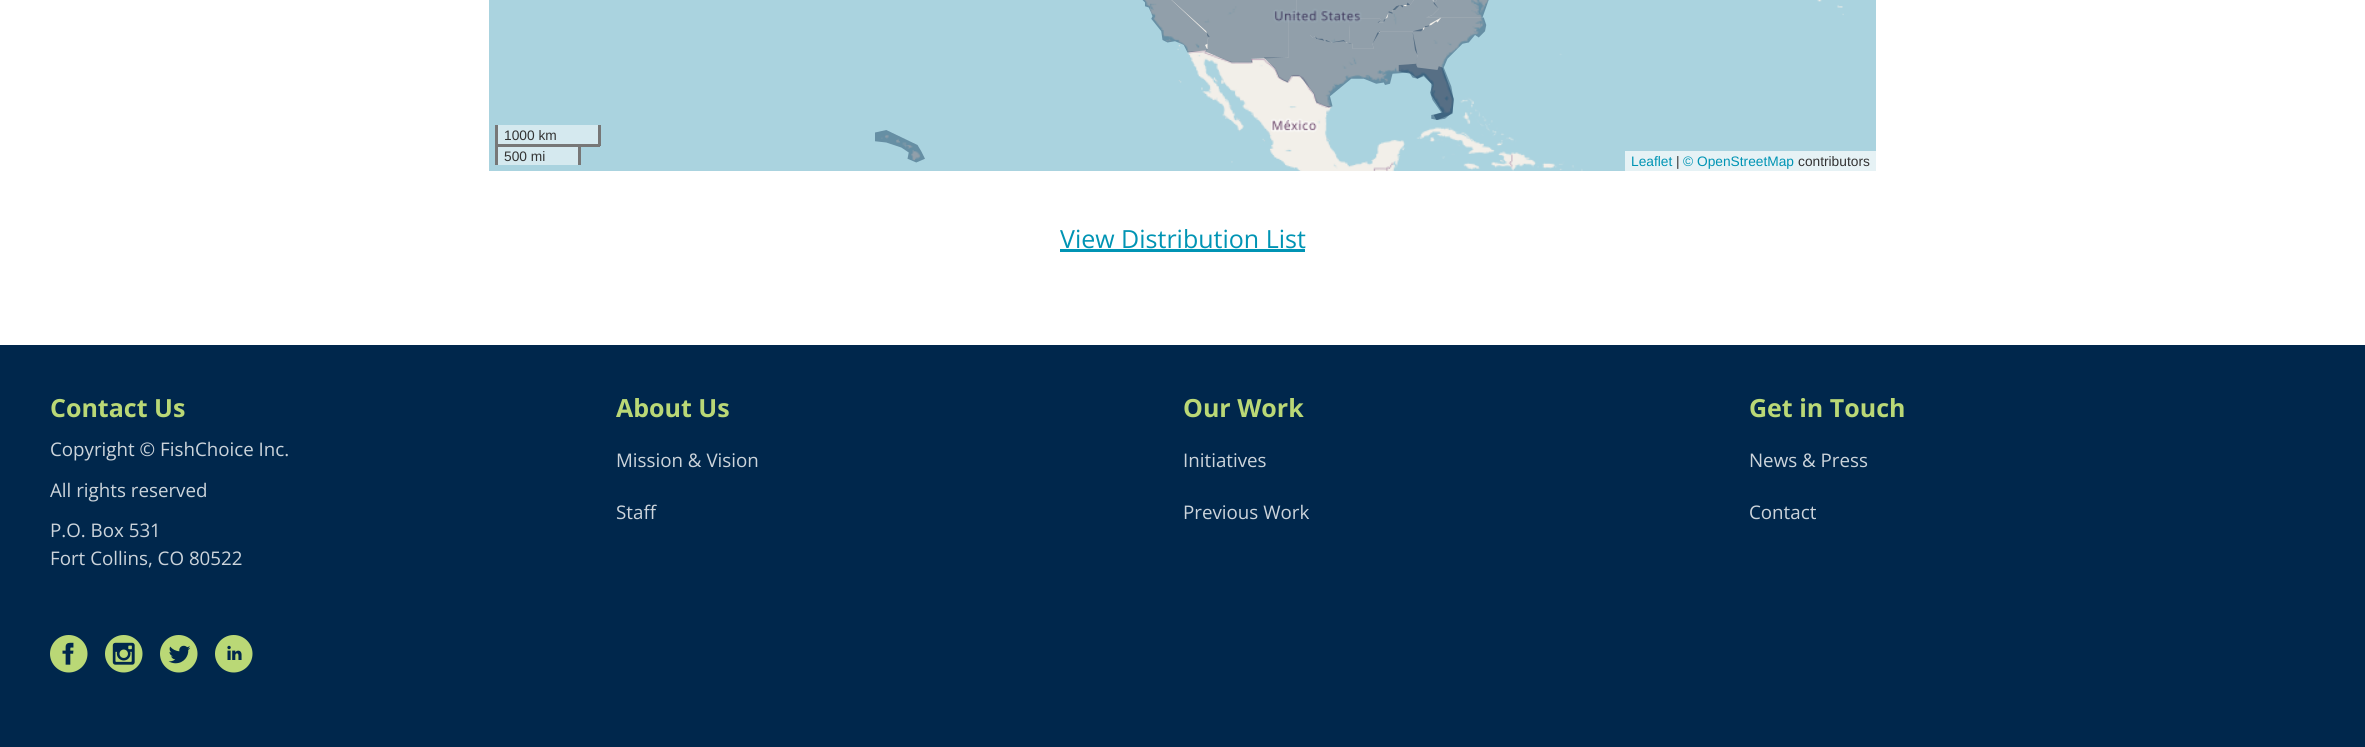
import math
import cairo

surface = cairo.ImageSurface(cairo.FORMAT_RGB24, 2365, 747)
ctx = cairo.Context(surface)
options = cairo.FontOptions()
options.set_hint_metrics(cairo.HINT_METRICS_OFF)
options.set_hint_style(cairo.HINT_STYLE_NONE)
ctx.set_font_options(options)
ctx.set_miter_limit(4)


def set_color(code):
    ctx.set_source_rgb(*(v / 255 for v in bytes.fromhex(code[-6:])))


def draw_text(x, y, s, family, size, color, bold=False, italic=False):
    ctx.select_font_face(family, cairo.FONT_SLANT_ITALIC if italic else cairo.FONT_SLANT_NORMAL, cairo.FONT_WEIGHT_BOLD if bold else cairo.FONT_WEIGHT_NORMAL)
    ctx.set_font_size(size)
    set_color(color)
    ctx.move_to(x, y)
    ctx.show_text(s)


def fill_rect(x, y, w, h, color):
    set_color(color)
    ctx.rectangle(x, y, w, h)
    ctx.fill()


def draw_image(path, x, y, w, h):
    ctx.save()
    ctx.set_source_surface(cairo.ImageSurface.create_from_png(path), x, y)
    ctx.rectangle(x, y, w, h)
    ctx.fill()
    ctx.restore()


set_color("#ffffff")
ctx.paint()
fill_rect(489, 0, 252, 171, "#aad3df")
fill_rect(498, 147, 80, 18, "#d5e9ef")
draw_image("assets/img1.png", 741, 0, 320, 171)
draw_image("assets/img2.png", 1061, 0, 320, 171)
draw_image("assets/img3.png", 1381, 0, 320, 171)
draw_image("assets/img4.png", 1701, 0, 175, 151)
draw_image("assets/img5.png", 875, 0, 614, 163)
fill_rect(498, 125, 100, 19, "#d5e9ef")
fill_rect(598, 125, 3, 21, "#777777")
fill_rect(581, 144, 19, 3, "#777777")
fill_rect(495, 125, 3, 21, "#777777")
draw_text(504, 140, "1000 km", "Liberation Sans", 13.75, "#333333")
fill_rect(495, 144, 85, 3, "#777777")
fill_rect(578, 144, 3, 21, "#777777")
fill_rect(495, 144, 3, 21, "#777777")
draw_text(504, 161, "500 mi", "Liberation Sans", 13.75, "#333333")
fill_rect(1625, 151, 251, 20, "#e6f2f5")
draw_text(1631, 166, "Leaflet", "Liberation Sans", 13.75, "#0094b4")
draw_text(1676, 166, "|", "Liberation Sans", 13.75, "#333333")
draw_text(1683, 166, "© OpenStreetMap", "Liberation Sans", 13.75, "#0094b4")
draw_text(1798, 166, "contributors", "Liberation Sans", 13.75, "#333333")
draw_text(1060, 248, "View Distribution List", "Open Sans", 25, "#0094b4")
fill_rect(1060, 249, 245, 3, "#0094b4")
fill_rect(0, 345, 2365, 402, "#00274c")
draw_text(50, 417, "Contact Us", "Open Sans", 25, "#bad876", bold=True)
draw_text(50, 456, "Copyright © FishChoice Inc.", "Open Sans", 18.75, "#ccd4db")
draw_text(50, 497, "All rights reserved", "Open Sans", 18.75, "#ccd4db")
draw_text(50, 537, "P.O. Box 531", "Open Sans", 18.75, "#ccd4db")
draw_text(50, 565, "Fort Collins, CO 80522", "Open Sans", 18.75, "#ccd4db")
draw_image("assets/img6.png", 50, 635, 38, 38)
draw_image("assets/img7.png", 105, 635, 38, 38)
draw_image("assets/img8.png", 160, 635, 38, 38)
draw_image("assets/img9.png", 215, 635, 38, 38)
draw_text(616, 417, "About Us", "Open Sans", 25, "#bad876", bold=True)
draw_text(616, 467, "Mission & Vision", "Open Sans", 18.75, "#ccd4db")
draw_text(616, 519, "Staff", "Open Sans", 18.75, "#ccd4db")
draw_text(1183, 417, "Our Work", "Open Sans", 25, "#bad876", bold=True)
draw_text(1183, 467, "Initiatives", "Open Sans", 18.75, "#ccd4db")
draw_text(1183, 519, "Previous Work", "Open Sans", 18.75, "#ccd4db")
draw_text(1749, 417, "Get in Touch", "Open Sans", 25, "#bad876", bold=True)
draw_text(1749, 467, "News & Press", "Open Sans", 18.75, "#ccd4db")
draw_text(1749, 519, "Contact", "Open Sans", 18.75, "#ccd4db")
surface.write_to_png("output.png")
